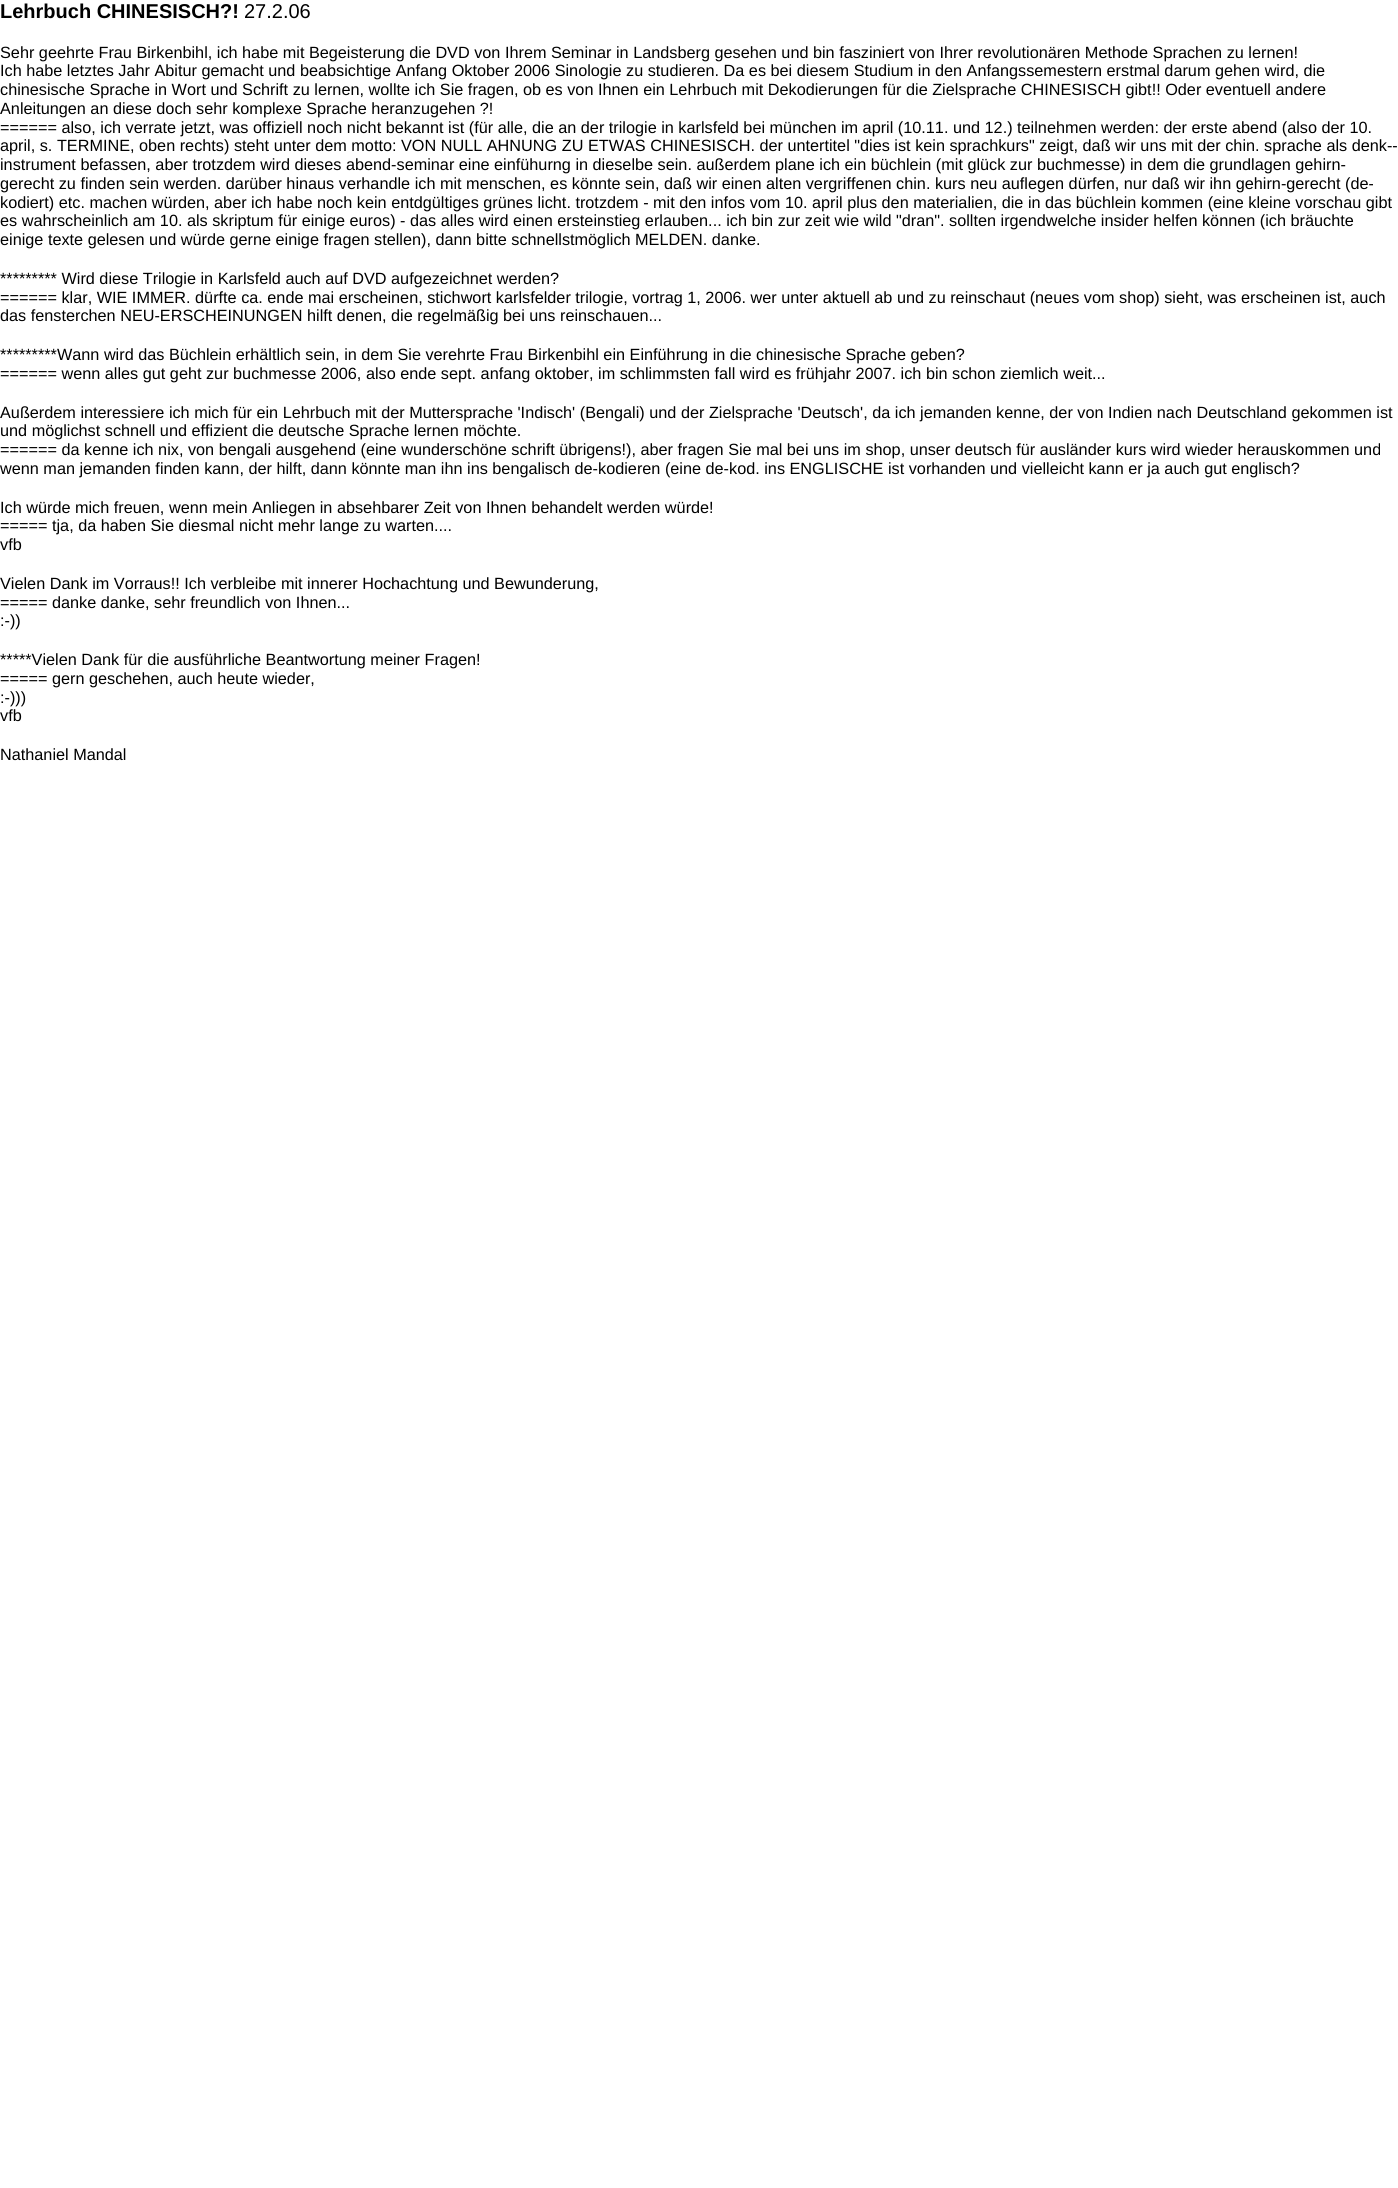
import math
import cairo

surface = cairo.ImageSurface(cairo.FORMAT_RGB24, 1398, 2188)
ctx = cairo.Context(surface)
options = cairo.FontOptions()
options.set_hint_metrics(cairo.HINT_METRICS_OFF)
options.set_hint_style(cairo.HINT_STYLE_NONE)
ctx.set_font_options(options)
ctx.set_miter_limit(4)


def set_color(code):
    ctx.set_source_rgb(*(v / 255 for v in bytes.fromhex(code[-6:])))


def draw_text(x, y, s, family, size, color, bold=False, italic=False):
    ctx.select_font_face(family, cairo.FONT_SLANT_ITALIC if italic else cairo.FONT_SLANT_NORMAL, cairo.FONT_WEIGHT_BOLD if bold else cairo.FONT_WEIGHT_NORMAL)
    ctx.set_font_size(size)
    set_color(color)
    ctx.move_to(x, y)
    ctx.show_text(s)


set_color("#ffffff")
ctx.paint()
draw_text(0, 18, "Lehrbuch CHINESISCH?!", "Liberation Sans", 20, "#000000", bold=True)
draw_text(244, 18, "27.2.06", "Liberation Sans", 20, "#000000")
draw_text(0, 58, "Sehr geehrte Frau Birkenbihl, ich habe mit Begeisterung die DVD von Ihrem Seminar in Landsberg gesehen und bin fasziniert von Ihrer revolutionären Methode Sprachen zu lernen!", "Liberation Sans", 16.25, "#000000")
draw_text(0, 76, "Ich habe letztes Jahr Abitur gemacht und beabsichtige Anfang Oktober 2006 Sinologie zu studieren. Da es bei diesem Studium in den Anfangssemestern erstmal darum gehen wird, die", "Liberation Sans", 16.25, "#000000")
draw_text(0, 95, "chinesische Sprache in Wort und Schrift zu lernen, wollte ich Sie fragen, ob es von Ihnen ein Lehrbuch mit Dekodierungen für die Zielsprache CHINESISCH gibt!! Oder eventuell andere", "Liberation Sans", 16.25, "#000000")
draw_text(0, 114, "Anleitungen an diese doch sehr komplexe Sprache heranzugehen ?!", "Liberation Sans", 16.25, "#000000")
draw_text(0, 133, "====== also, ich verrate jetzt, was offiziell noch nicht bekannt ist (für alle, die an der trilogie in karlsfeld bei münchen im april (10.11. und 12.) teilnehmen werden: der erste abend (also der 10.", "Liberation Sans", 16.25, "#000000")
draw_text(0, 151, "april, s. TERMINE, oben rechts) steht unter dem motto: VON NULL AHNUNG ZU ETWAS CHINESISCH. der untertitel \"dies ist kein sprachkurs\" zeigt, daß wir uns mit der chin. sprache als denk--", "Liberation Sans", 16.25, "#000000")
draw_text(0, 170, "instrument befassen, aber trotzdem wird dieses abend-seminar eine einfühurng in dieselbe sein. außerdem plane ich ein büchlein (mit glück zur buchmesse) in dem die grundlagen gehirn-", "Liberation Sans", 16.25, "#000000")
draw_text(0, 189, "gerecht zu finden sein werden. darüber hinaus verhandle ich mit menschen, es könnte sein, daß wir einen alten vergriffenen chin. kurs neu auflegen dürfen, nur daß wir ihn gehirn-gerecht (de-", "Liberation Sans", 16.25, "#000000")
draw_text(0, 208, "kodiert) etc. machen würden, aber ich habe noch kein entdgültiges grünes licht. trotzdem - mit den infos vom 10. april plus den materialien, die in das büchlein kommen (eine kleine vorschau gibt", "Liberation Sans", 16.25, "#000000")
draw_text(0, 226, "es wahrscheinlich am 10. als skriptum für einige euros) - das alles wird einen ersteinstieg erlauben... ich bin zur zeit wie wild \"dran\". sollten irgendwelche insider helfen können (ich bräuchte", "Liberation Sans", 16.25, "#000000")
draw_text(0, 245, "einige texte gelesen und würde gerne einige fragen stellen), dann bitte schnellstmöglich MELDEN. danke.", "Liberation Sans", 16.25, "#000000")
draw_text(0, 284, "********* Wird diese Trilogie in Karlsfeld auch auf DVD aufgezeichnet werden?", "Liberation Sans", 16.25, "#000000")
draw_text(0, 303, "====== klar, WIE IMMER. dürfte ca. ende mai erscheinen, stichwort karlsfelder trilogie, vortrag 1, 2006. wer unter aktuell ab und zu reinschaut (neues vom shop) sieht, was erscheinen ist, auch", "Liberation Sans", 16.25, "#000000")
draw_text(0, 321, "das fensterchen NEU-ERSCHEINUNGEN hilft denen, die regelmäßig bei uns reinschauen...", "Liberation Sans", 16.25, "#000000")
draw_text(0, 360, "*********Wann wird das Büchlein erhältlich sein, in dem Sie verehrte Frau Birkenbihl ein Einführung in die chinesische Sprache geben?", "Liberation Sans", 16.25, "#000000")
draw_text(0, 379, "====== wenn alles gut geht zur buchmesse 2006, also ende sept. anfang oktober, im schlimmsten fall wird es frühjahr 2007. ich bin schon ziemlich weit...", "Liberation Sans", 16.25, "#000000")
draw_text(0, 418, "Außerdem interessiere ich mich für ein Lehrbuch mit der Muttersprache 'Indisch' (Bengali) und der Zielsprache 'Deutsch', da ich jemanden kenne, der von Indien nach Deutschland gekommen ist", "Liberation Sans", 16.25, "#000000")
draw_text(0, 436, "und möglichst schnell und effizient die deutsche Sprache lernen möchte.", "Liberation Sans", 16.25, "#000000")
draw_text(0, 455, "====== da kenne ich nix, von bengali ausgehend (eine wunderschöne schrift übrigens!), aber fragen Sie mal bei uns im shop, unser deutsch für ausländer kurs wird wieder herauskommen und", "Liberation Sans", 16.25, "#000000")
draw_text(0, 474, "wenn man jemanden finden kann, der hilft, dann könnte man ihn ins bengalisch de-kodieren (eine de-kod. ins ENGLISCHE ist vorhanden und vielleicht kann er ja auch gut englisch?", "Liberation Sans", 16.25, "#000000")
draw_text(0, 513, "Ich würde mich freuen, wenn mein Anliegen in absehbarer Zeit von Ihnen behandelt werden würde!", "Liberation Sans", 16.25, "#000000")
draw_text(0, 531, "===== tja, da haben Sie diesmal nicht mehr lange zu warten....", "Liberation Sans", 16.25, "#000000")
draw_text(0, 550, "vfb", "Liberation Sans", 16.25, "#000000")
draw_text(0, 589, "Vielen Dank im Vorraus!! Ich verbleibe mit innerer Hochachtung und Bewunderung,", "Liberation Sans", 16.25, "#000000")
draw_text(0, 608, "===== danke danke, sehr freundlich von Ihnen...", "Liberation Sans", 16.25, "#000000")
draw_text(0, 626, ":-))", "Liberation Sans", 16.25, "#000000")
draw_text(0, 665, "*****Vielen Dank für die ausführliche Beantwortung meiner Fragen!", "Liberation Sans", 16.25, "#000000")
draw_text(0, 684, "===== gern geschehen, auch heute wieder,", "Liberation Sans", 16.25, "#000000")
draw_text(0, 703, ":-)))", "Liberation Sans", 16.25, "#000000")
draw_text(0, 721, "vfb", "Liberation Sans", 16.25, "#000000")
draw_text(0, 760, "Nathaniel Mandal", "Liberation Sans", 16.25, "#000000")
surface.write_to_png("output.png")
